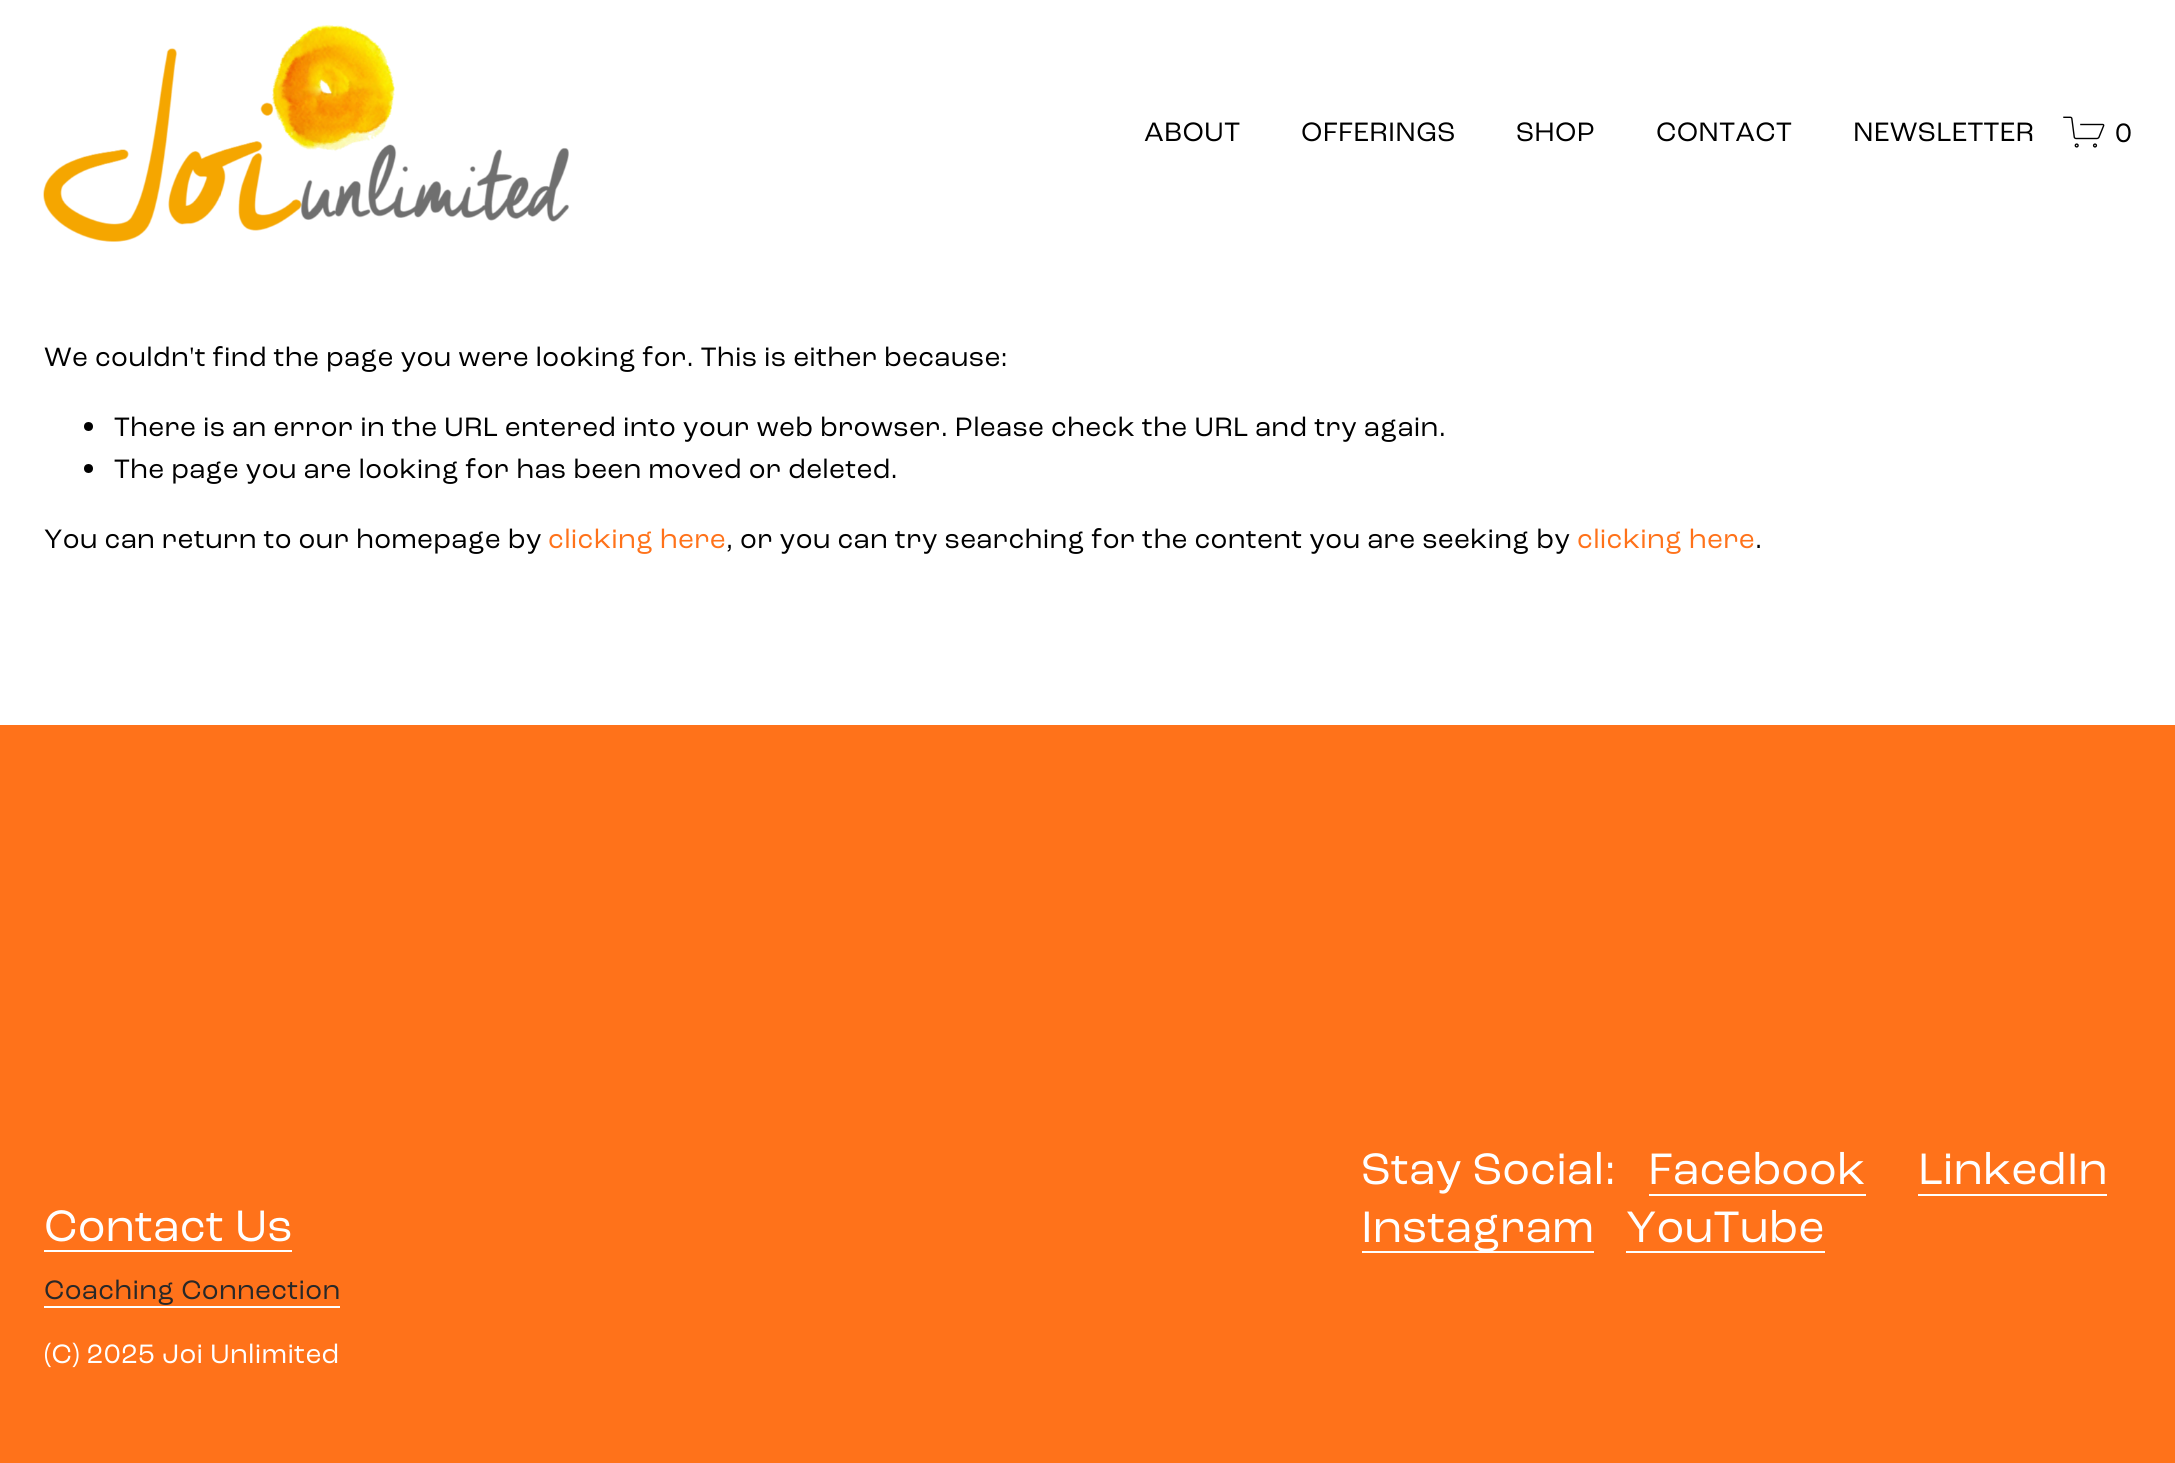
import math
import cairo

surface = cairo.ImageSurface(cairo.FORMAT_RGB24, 2175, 1463)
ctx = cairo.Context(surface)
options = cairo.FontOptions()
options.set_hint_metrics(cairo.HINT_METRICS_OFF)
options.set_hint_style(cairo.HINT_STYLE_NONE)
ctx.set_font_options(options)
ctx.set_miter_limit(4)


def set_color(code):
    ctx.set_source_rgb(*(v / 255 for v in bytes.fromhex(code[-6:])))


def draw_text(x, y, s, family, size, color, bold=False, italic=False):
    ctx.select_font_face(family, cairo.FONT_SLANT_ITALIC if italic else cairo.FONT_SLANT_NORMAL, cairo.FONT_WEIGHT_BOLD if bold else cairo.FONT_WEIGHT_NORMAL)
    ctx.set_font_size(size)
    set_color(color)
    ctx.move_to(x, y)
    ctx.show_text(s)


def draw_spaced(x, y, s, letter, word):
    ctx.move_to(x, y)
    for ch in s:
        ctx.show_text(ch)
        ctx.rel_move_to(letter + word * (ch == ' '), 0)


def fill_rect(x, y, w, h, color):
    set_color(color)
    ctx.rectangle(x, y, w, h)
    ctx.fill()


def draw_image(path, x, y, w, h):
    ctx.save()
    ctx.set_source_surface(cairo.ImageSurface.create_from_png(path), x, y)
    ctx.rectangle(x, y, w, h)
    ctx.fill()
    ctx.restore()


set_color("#ffffff")
ctx.paint()
draw_image("assets/img1.png", 43, 24, 526, 218)
ctx.select_font_face("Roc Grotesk")
ctx.set_font_size(28)
set_color("#000000")
draw_spaced(1144, 141, "ABOUT", 0.28, 0)
draw_spaced(1301, 141, "OFFERINGS", 0.28, 0)
draw_spaced(1516, 141, "SHOP", 0.28, 0)
draw_spaced(1656, 141, "CONTACT", 0.28, 0)
draw_spaced(1853, 141, "NEWSLETTER", 0.28, 0)
draw_image("assets/img2.png", 2063, 116, 42, 32)
draw_spaced(2115, 142, "0", 0.28, 0)
draw_spaced(44, 366, "We couldn't find the page you were looking for. This is either because:", 0.28, 0)
ctx.new_path()
ctx.arc(88.5, 426.5, 4.5, 0, 2 * math.pi)
ctx.fill()
draw_spaced(114, 436, "There is an error in the URL entered into your web browser. Please check the URL and try again.", 0.28, 0)
ctx.new_path()
ctx.arc(88.5, 468.5, 4.5, 0, 2 * math.pi)
ctx.fill()
draw_spaced(114, 478, "The page you are looking for has been moved or deleted.", 0.28, 0)
draw_spaced(44, 548, "You can return to our homepage by", 0.28, 0)
set_color("#ff721a")
draw_spaced(548, 548, "clicking here", 0.28, 0)
set_color("#000000")
draw_spaced(726, 548, ", or you can try searching for the content you are seeking by", 0.28, 0)
set_color("#ff721a")
draw_spaced(1577, 548, "clicking here", 0.28, 0)
set_color("#000000")
draw_spaced(1755, 548, ".", 0.28, 0)
fill_rect(0, 725, 2175, 738, "#ff721a")
draw_text(44, 1241, "Contact Us", "Roc Grotesk", 46.25, "#ffffff")
fill_rect(44, 1250, 248, 2, "#ffffff")
draw_text(1361, 1184, "Stay Social:", "Roc Grotesk", 46.25, "#ffffff")
draw_text(1648, 1184, "Facebook", "Roc Grotesk", 46.25, "#ffffff")
fill_rect(1649, 1194, 217, 2, "#ffffff")
draw_text(1918, 1184, "LinkedIn", "Roc Grotesk", 46.25, "#ffffff")
fill_rect(1918, 1194, 189, 2, "#ffffff")
fill_rect(1362, 1251, 232, 2, "#ffffff")
draw_text(1361, 1242, "Instagram", "Roc Grotesk", 46.25, "#ffffff")
draw_text(1626, 1242, "YouTube", "Roc Grotesk", 46.25, "#ffffff")
fill_rect(1626, 1251, 199, 2, "#ffffff")
ctx.set_font_size(28)
set_color("#282828")
draw_spaced(44, 1299, "Coaching Connection", 0.28, 0)
fill_rect(44, 1306, 296, 2, "#ffffff")
draw_spaced(44, 1363, "(C) 2025 Joi Unlimited", 0.28, 0)
surface.write_to_png("output.png")
